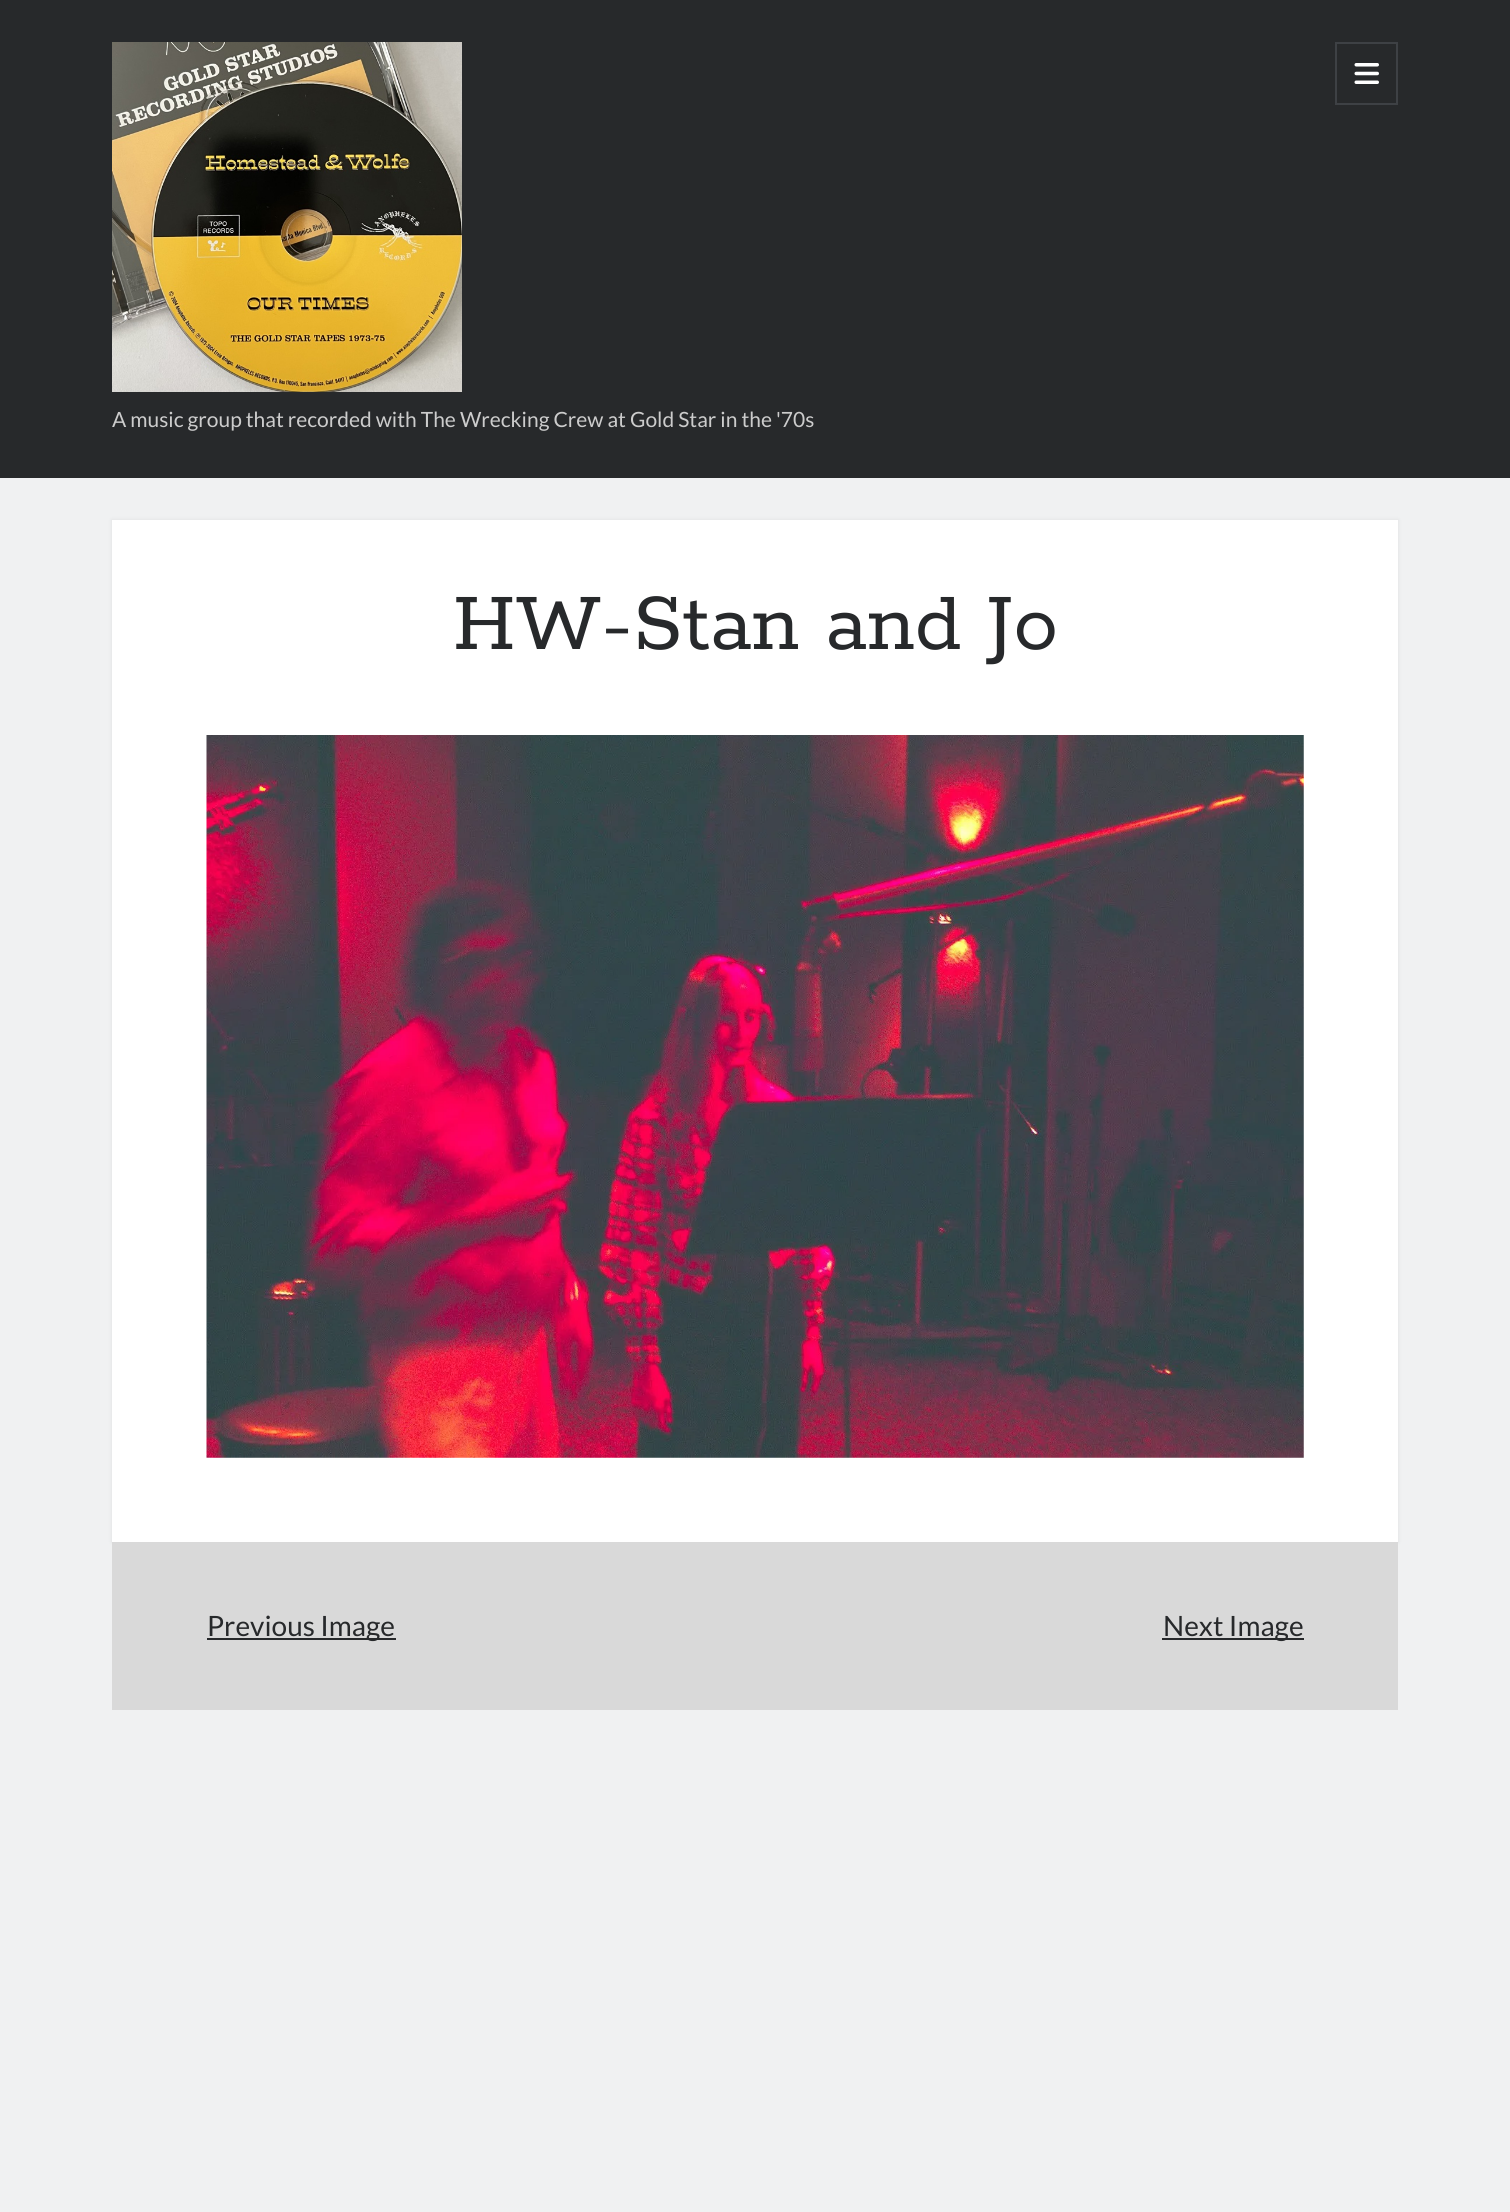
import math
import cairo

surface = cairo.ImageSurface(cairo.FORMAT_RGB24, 1510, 2212)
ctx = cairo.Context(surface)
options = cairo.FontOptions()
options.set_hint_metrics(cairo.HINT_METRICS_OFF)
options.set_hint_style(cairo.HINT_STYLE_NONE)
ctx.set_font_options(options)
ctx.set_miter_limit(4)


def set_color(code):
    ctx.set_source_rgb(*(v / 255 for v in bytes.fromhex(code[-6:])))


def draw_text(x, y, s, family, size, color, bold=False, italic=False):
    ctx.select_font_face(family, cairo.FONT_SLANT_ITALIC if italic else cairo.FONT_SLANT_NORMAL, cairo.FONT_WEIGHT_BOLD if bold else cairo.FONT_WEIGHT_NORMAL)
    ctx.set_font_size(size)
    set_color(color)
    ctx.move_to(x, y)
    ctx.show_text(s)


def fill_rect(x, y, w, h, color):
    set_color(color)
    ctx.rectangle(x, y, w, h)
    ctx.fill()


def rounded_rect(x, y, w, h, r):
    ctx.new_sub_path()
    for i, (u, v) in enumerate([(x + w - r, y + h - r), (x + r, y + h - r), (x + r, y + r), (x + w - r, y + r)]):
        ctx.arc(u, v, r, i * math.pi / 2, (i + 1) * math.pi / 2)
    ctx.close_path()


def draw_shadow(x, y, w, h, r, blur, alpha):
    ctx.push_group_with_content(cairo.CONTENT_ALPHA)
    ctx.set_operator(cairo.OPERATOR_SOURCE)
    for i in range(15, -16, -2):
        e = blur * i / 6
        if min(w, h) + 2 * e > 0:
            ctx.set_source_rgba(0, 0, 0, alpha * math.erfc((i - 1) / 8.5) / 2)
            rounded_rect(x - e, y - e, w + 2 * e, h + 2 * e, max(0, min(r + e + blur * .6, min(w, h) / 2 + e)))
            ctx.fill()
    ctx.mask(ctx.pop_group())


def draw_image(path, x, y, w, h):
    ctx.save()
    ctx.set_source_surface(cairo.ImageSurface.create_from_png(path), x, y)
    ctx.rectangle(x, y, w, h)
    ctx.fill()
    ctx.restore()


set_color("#27292b")
ctx.paint()
ctx.rectangle(1336, 43, 61, 61)
set_color("#3e4145")
ctx.stroke()
draw_image("assets/img1.png", 1354, 63, 25, 21)
draw_image("assets/img2.png", 112, 42, 350, 350)
draw_text(112, 427, "A music group that recorded with The Wrecking Crew at Gold Star in the '70s", "Lato", 21, "#cccccc")
fill_rect(0, 478, 1510, 1734, "#f0f1f2")
set_color("#272b2f")
draw_shadow(112, 520, 1286, 1022, 0, 2, 0.1)
fill_rect(112, 520, 1286, 1022, "#ffffff")
draw_text(453, 649, "HW-Stan and Jo", "Rokkitt", 89.25, "#27292b")
draw_image("assets/img3.png", 206, 735, 1098, 723)
fill_rect(112, 1542, 1286, 168, "#d9d9d9")
fill_rect(207, 1638, 189, 2, "#27292b")
draw_text(207, 1636, "Previous Image", "Lato", 28, "#27292b")
fill_rect(1162, 1638, 142, 2, "#27292b")
draw_text(1163, 1636, "Next Image", "Lato", 28, "#27292b")
surface.write_to_png("output.png")
